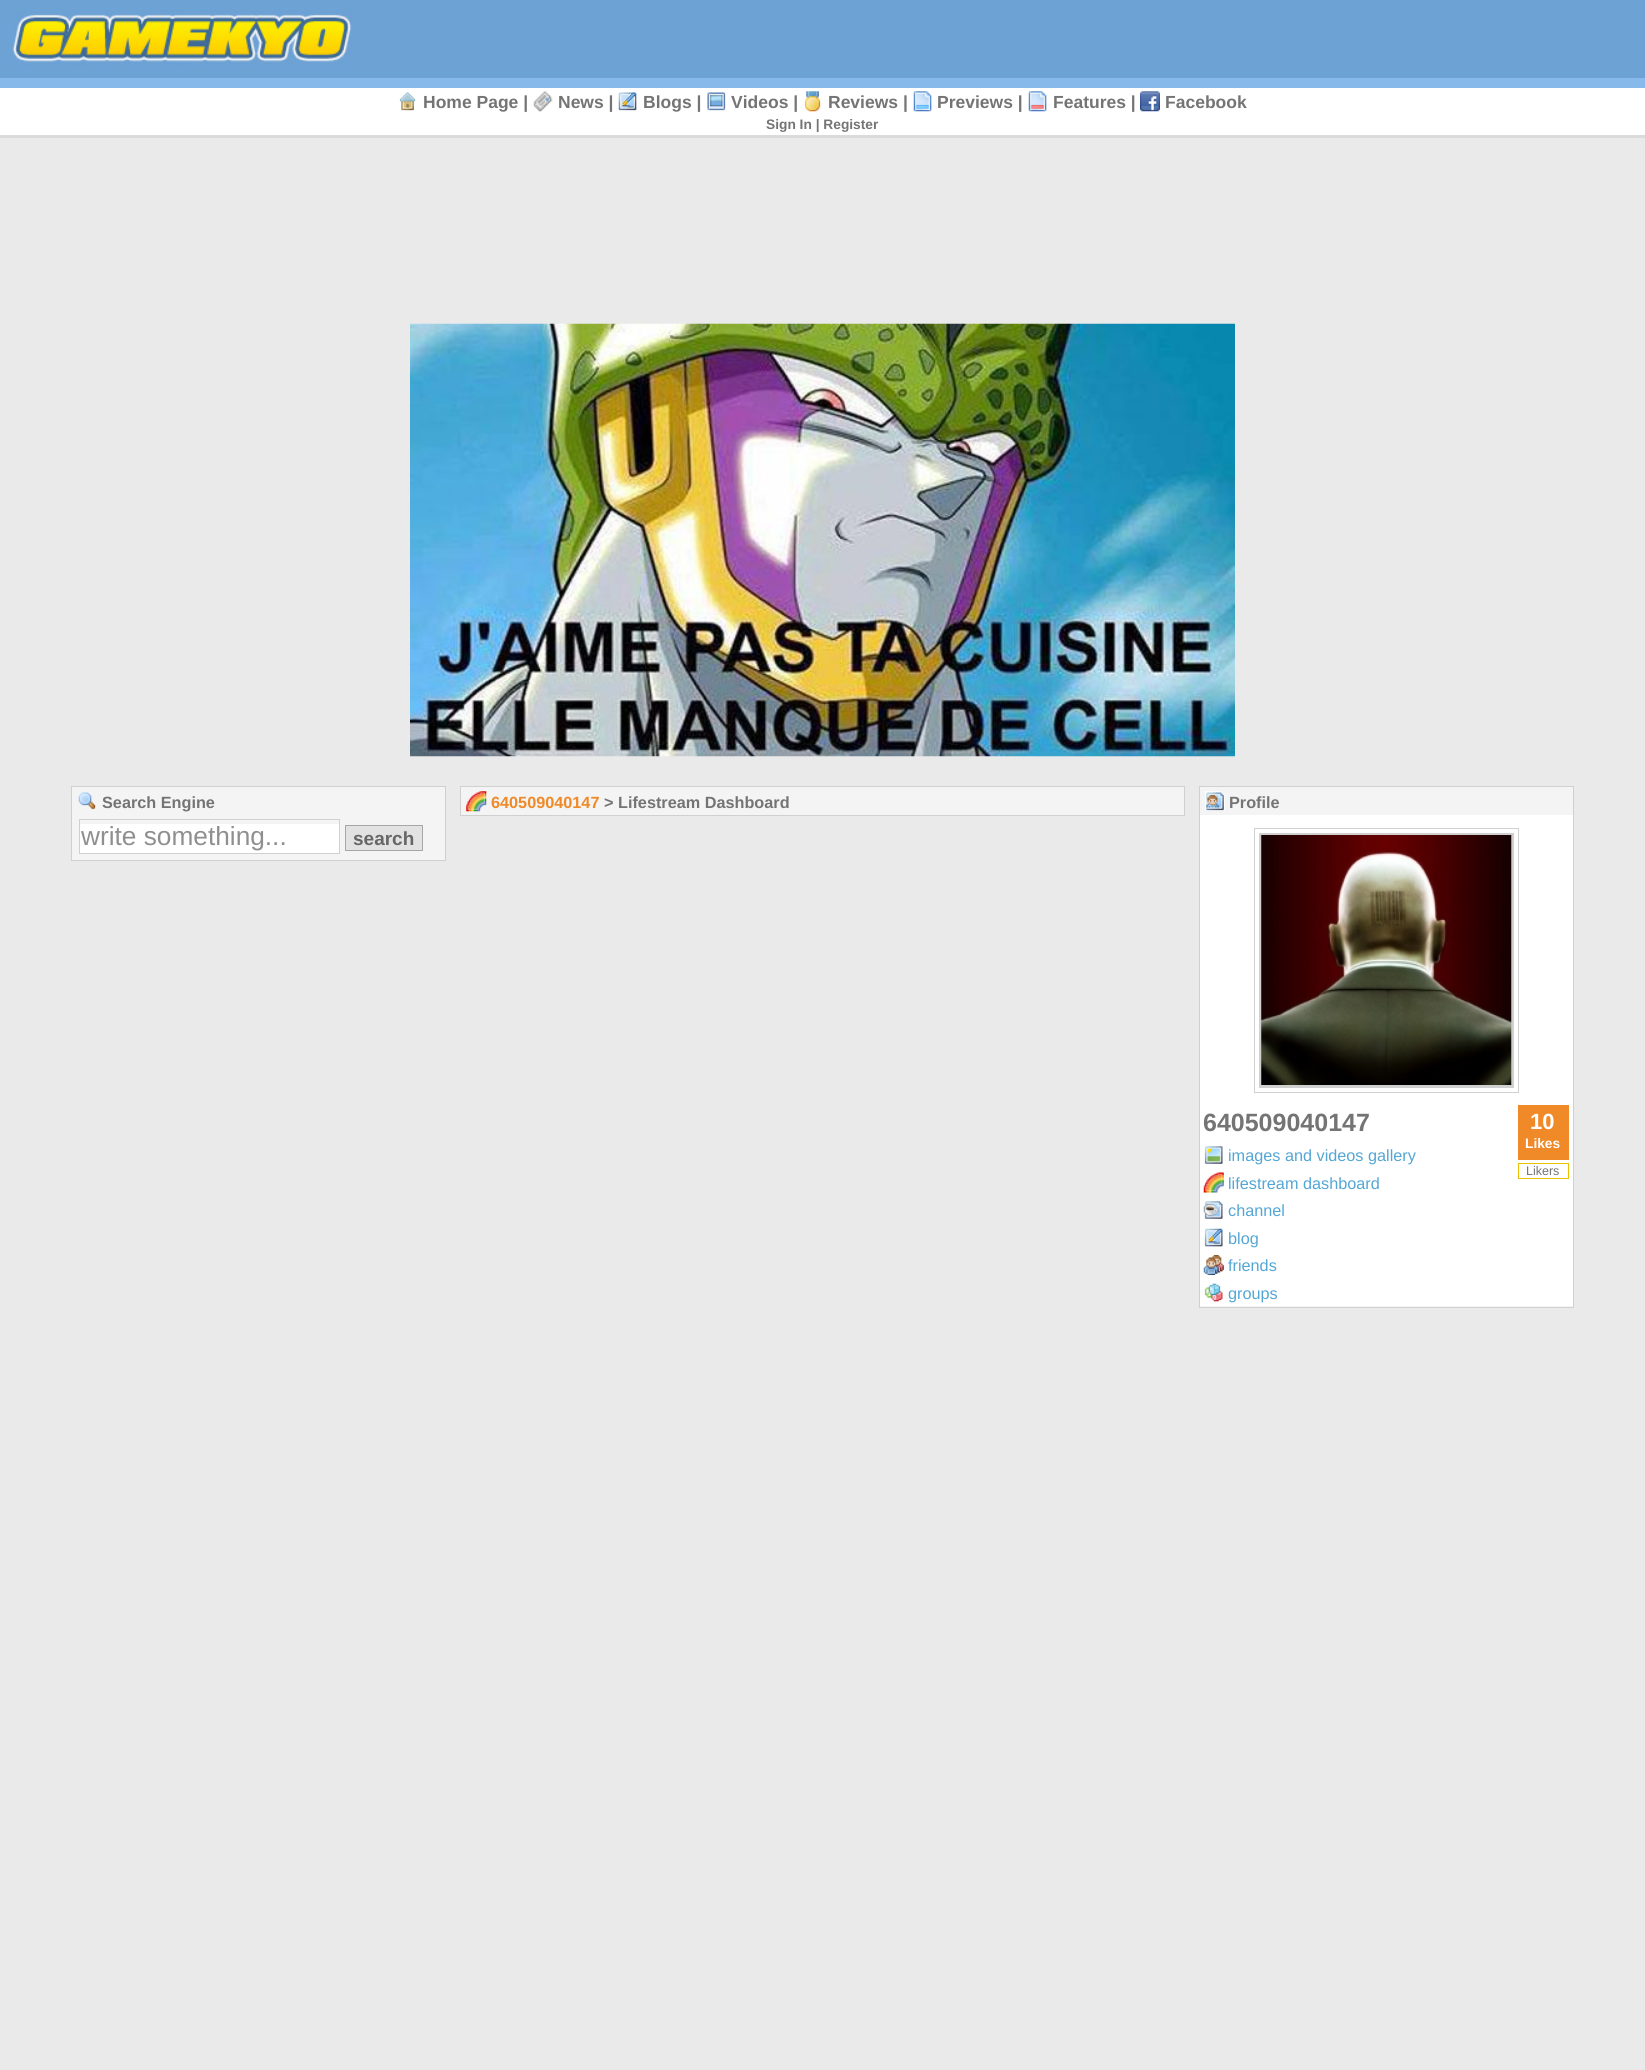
import math
import cairo

surface = cairo.ImageSurface(cairo.FORMAT_RGB24, 1645, 2070)
ctx = cairo.Context(surface)
options = cairo.FontOptions()
options.set_hint_metrics(cairo.HINT_METRICS_OFF)
options.set_hint_style(cairo.HINT_STYLE_NONE)
ctx.set_font_options(options)
ctx.set_miter_limit(4)


def set_color(code):
    ctx.set_source_rgb(*(v / 255 for v in bytes.fromhex(code[-6:])))


def draw_text(x, y, s, family, size, color, bold=False, italic=False):
    ctx.select_font_face(family, cairo.FONT_SLANT_ITALIC if italic else cairo.FONT_SLANT_NORMAL, cairo.FONT_WEIGHT_BOLD if bold else cairo.FONT_WEIGHT_NORMAL)
    ctx.set_font_size(size)
    set_color(color)
    ctx.move_to(x, y)
    ctx.show_text(s)


def fill_rect(x, y, w, h, color):
    set_color(color)
    ctx.rectangle(x, y, w, h)
    ctx.fill()


def draw_image(path, x, y, w, h):
    ctx.save()
    ctx.set_source_surface(cairo.ImageSurface.create_from_png(path), x, y)
    ctx.rectangle(x, y, w, h)
    ctx.fill()
    ctx.restore()


set_color("#eaeaea")
ctx.paint()
fill_rect(0, 0, 1645, 78, "#6da2d5")
fill_rect(0, 78, 1645, 10, "#87b9eb")
draw_image("assets/img1.png", 12, 10, 340, 56)
fill_rect(0, 88, 1645, 47, "#ffffff")
draw_image("assets/img2.png", 399, 92, 17, 19)
draw_text(423, 108, "Home Page |", "Liberation Sans", 17.5, "#747474", bold=True)
draw_image("assets/img3.png", 533, 91, 20, 21)
draw_text(558, 108, "News |", "Liberation Sans", 17.5, "#747474", bold=True)
draw_image("assets/img4.png", 618, 92, 19, 19)
draw_text(643, 108, "Blogs |", "Liberation Sans", 17.5, "#747474", bold=True)
draw_image("assets/img5.png", 707, 92, 19, 19)
draw_text(731, 108, "Videos |", "Liberation Sans", 17.5, "#747474", bold=True)
draw_image("assets/img6.png", 804, 91, 17, 21)
draw_text(828, 108, "Reviews |", "Liberation Sans", 17.5, "#747474", bold=True)
draw_image("assets/img7.png", 913, 91, 19, 21)
draw_text(937, 108, "Previews |", "Liberation Sans", 17.5, "#747474", bold=True)
draw_image("assets/img8.png", 1028, 91, 19, 21)
draw_text(1053, 108, "Features |", "Liberation Sans", 17.5, "#747474", bold=True)
draw_image("assets/img9.png", 1140, 91, 20, 21)
draw_text(1165, 108, "Facebook", "Liberation Sans", 17.5, "#747474", bold=True)
fill_rect(0, 135, 1645, 3, "#dbdbdb")
draw_text(766, 129, "Sign In | Register", "Liberation Sans", 13.75, "#747474", bold=True)
draw_image("assets/img10.png", 410, 323, 825, 434)
set_color("#f4f4f4")
ctx.rectangle(71.5, 786.5, 374, 74)
ctx.fill_preserve()
set_color("#d0d0d0")
ctx.set_line_width(1)
ctx.stroke()
draw_image("assets/img11.png", 78, 792, 18, 18)
draw_text(102, 808, "Search Engine", "Liberation Sans", 16.25, "#747474", bold=True)
fill_rect(80, 824, 259, 29, "#ffffff")
ctx.rectangle(79.5, 819.5, 260, 34)
set_color("#d0d0d0")
ctx.stroke()
draw_text(81, 845, "write something...", "Liberation Sans", 26.25, "#8f8f8f")
set_color("#e2e2e2")
ctx.rectangle(345.5, 825.5, 77, 25)
ctx.fill_preserve()
set_color("#a7a6aa")
ctx.stroke()
draw_text(353, 845, "search", "Liberation Sans", 19, "#666666", bold=True)
set_color("#f4f4f4")
ctx.rectangle(460.5, 786.5, 724, 29)
ctx.fill_preserve()
set_color("#d0d0d0")
ctx.stroke()
draw_image("assets/img12.png", 466, 791, 21, 21)
draw_text(491, 808, "640509040147", "Liberation Sans", 16.25, "#f08a28", bold=True)
draw_text(604, 808, "> Lifestream Dashboard", "Liberation Sans", 16.25, "#747474", bold=True)
set_color("#f4f4f4")
ctx.rectangle(1199.5, 786.5, 374, 521)
ctx.fill_preserve()
set_color("#d0d0d0")
ctx.stroke()
draw_image("assets/img13.png", 1205, 791, 20, 20)
draw_text(1229, 808, "Profile", "Liberation Sans", 16.25, "#747474", bold=True)
fill_rect(1200, 815, 373, 491, "#ffffff")
ctx.rectangle(1254.5, 828.5, 264, 264)
set_color("#d0d0d0")
ctx.stroke()
ctx.rectangle(1260.5, 834.5, 252, 252)
ctx.set_line_width(3)
ctx.stroke()
draw_image("assets/img14.png", 1261, 835, 251, 250)
draw_text(1203, 1131, "640509040147", "Liberation Sans", 25, "#747474", bold=True)
fill_rect(1518, 1105, 51, 55, "#f08a28")
draw_text(1530, 1129, "10", "Liberation Sans", 22, "#ffffff", bold=True)
draw_text(1525, 1148, "Likes", "Liberation Sans", 13.75, "#ffffff", bold=True)
ctx.rectangle(1518.5, 1163.5, 50, 15)
set_color("#ecc101")
ctx.set_line_width(1)
ctx.stroke()
draw_text(1526, 1175, "Likers", "Liberation Sans", 12.5, "#747474")
draw_image("assets/img15.png", 1204, 1146, 19, 18)
draw_text(1228, 1161, "images and videos gallery", "Liberation Sans", 16.25, "#54a6d5")
draw_image("assets/img16.png", 1203, 1172, 21, 21)
draw_text(1228, 1189, "lifestream dashboard", "Liberation Sans", 16.25, "#54a6d5")
draw_image("assets/img17.png", 1203, 1201, 20, 18)
draw_text(1228, 1216, "channel", "Liberation Sans", 16.25, "#54a6d5")
draw_image("assets/img18.png", 1204, 1228, 19, 19)
draw_text(1228, 1244, "blog", "Liberation Sans", 16.25, "#54a6d5")
draw_image("assets/img19.png", 1203, 1255, 21, 20)
draw_text(1228, 1271, "friends", "Liberation Sans", 16.25, "#54a6d5")
draw_image("assets/img20.png", 1204, 1283, 19, 19)
draw_text(1228, 1299, "groups", "Liberation Sans", 16.25, "#54a6d5")
surface.write_to_png("output.png")
